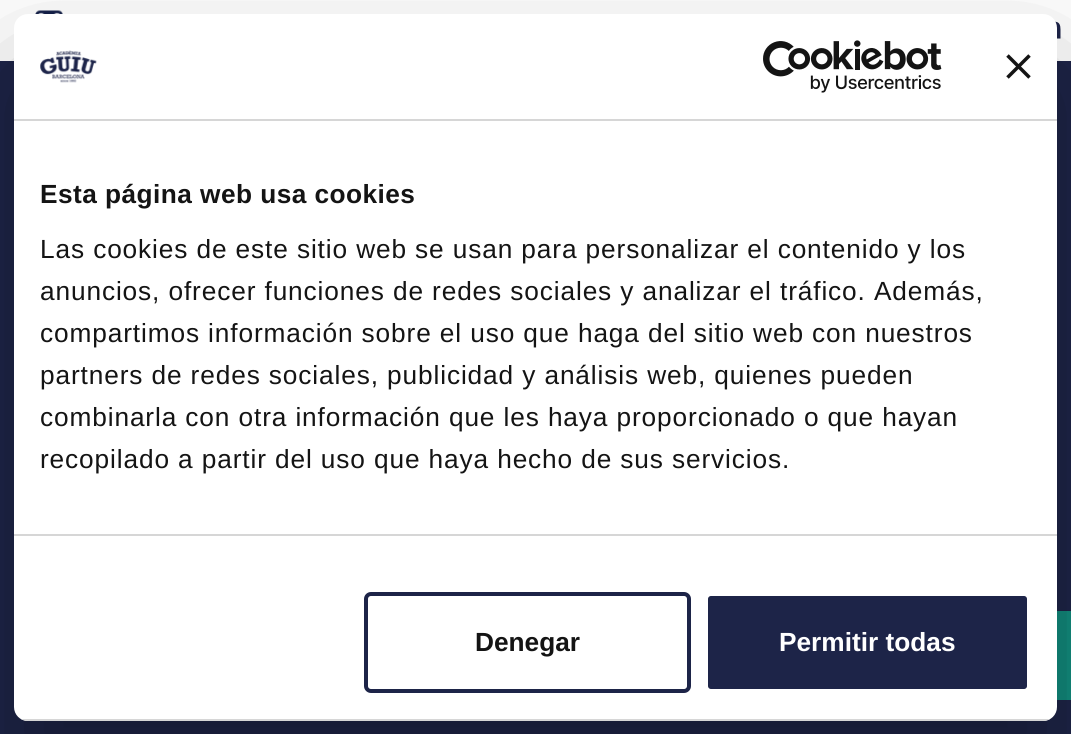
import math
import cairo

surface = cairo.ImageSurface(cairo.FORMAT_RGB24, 1071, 734)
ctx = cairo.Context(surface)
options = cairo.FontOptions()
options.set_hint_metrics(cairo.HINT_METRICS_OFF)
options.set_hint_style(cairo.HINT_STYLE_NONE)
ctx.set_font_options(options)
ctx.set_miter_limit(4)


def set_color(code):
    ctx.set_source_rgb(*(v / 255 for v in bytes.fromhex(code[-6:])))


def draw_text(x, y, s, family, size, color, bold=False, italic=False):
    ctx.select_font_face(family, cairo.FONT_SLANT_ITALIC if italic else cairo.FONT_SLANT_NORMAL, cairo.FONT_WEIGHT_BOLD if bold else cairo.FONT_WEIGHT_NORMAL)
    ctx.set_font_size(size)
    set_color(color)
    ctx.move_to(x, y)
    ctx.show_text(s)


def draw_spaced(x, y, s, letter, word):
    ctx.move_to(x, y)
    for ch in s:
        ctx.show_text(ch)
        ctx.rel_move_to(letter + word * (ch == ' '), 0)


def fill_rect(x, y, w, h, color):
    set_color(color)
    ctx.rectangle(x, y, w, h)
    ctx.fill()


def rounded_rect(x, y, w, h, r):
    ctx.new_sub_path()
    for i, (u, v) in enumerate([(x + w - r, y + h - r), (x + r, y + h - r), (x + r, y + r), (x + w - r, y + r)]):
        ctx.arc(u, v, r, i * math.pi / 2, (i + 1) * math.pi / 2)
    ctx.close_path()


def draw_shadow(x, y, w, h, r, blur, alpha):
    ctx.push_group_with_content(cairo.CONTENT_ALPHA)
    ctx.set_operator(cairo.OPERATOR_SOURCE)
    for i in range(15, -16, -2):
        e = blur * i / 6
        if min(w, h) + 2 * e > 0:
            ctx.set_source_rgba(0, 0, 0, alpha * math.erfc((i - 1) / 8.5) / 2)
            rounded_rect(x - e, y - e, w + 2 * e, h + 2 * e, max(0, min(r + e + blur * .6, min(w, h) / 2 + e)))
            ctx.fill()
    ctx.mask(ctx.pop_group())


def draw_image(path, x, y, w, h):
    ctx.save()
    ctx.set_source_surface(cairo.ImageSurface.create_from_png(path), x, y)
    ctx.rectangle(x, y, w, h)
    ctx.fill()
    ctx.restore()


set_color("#1d2448")
ctx.paint()
fill_rect(0, 0, 1071, 61, "#ffffff")
draw_image("assets/img1.png", 35, 10, 28, 4)
draw_image("assets/img2.png", 1055, 21, 6, 18)
fill_rect(1057, 611, 14, 89, "#128c7e")
set_color("#000000")
draw_shadow(14, 70, 1043, 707, 14, 59.5, 0.3)
set_color("#ffffff")
rounded_rect(14, 14, 1043, 707, 14)
ctx.fill()
fill_rect(14, 119, 1043, 2, "#d6d6d6")
draw_image("assets/img3.png", 40, 50, 57, 33)
draw_image("assets/img4.png", 763, 40, 179, 53)
draw_image("assets/img5.png", 1006, 54, 25, 25)
fill_rect(14, 534, 1043, 2, "#d6d6d6")
ctx.select_font_face("Liberation Sans", cairo.FONT_SLANT_NORMAL, cairo.FONT_WEIGHT_BOLD)
ctx.set_font_size(26.25)
set_color("#141414")
draw_spaced(40, 203, "Esta página web usa cookies", 0.45, 0)
ctx.select_font_face("Liberation Sans")
draw_spaced(40, 258, "Las cookies de este sitio web se usan para personalizar el contenido y los", 0.88, 0)
draw_spaced(40, 300, "anuncios, ofrecer funciones de redes sociales y analizar el tráfico. Además,", 0.88, 0)
draw_spaced(40, 342, "compartimos información sobre el uso que haga del sitio web con nuestros", 0.88, 0)
draw_spaced(40, 384, "partners de redes sociales, publicidad y análisis web, quienes pueden", 0.88, 0)
draw_spaced(40, 426, "combinarla con otra información que les haya proporcionado o que hayan", 0.88, 0)
draw_spaced(40, 468, "recopilado a partir del uso que haya hecho de sus servicios.", 0.88, 0)
ctx.save()
rounded_rect(14, 14, 1043, 707, 14)
ctx.clip()
fill_rect(14, 719, 1043, 2, "#d6d6d6")
ctx.restore()
rounded_rect(366, 594, 323, 97, 5)
set_color("#1d2448")
ctx.set_line_width(4)
ctx.stroke()
draw_text(475, 651, "Denegar", "Liberation Sans", 26.25, "#141414", bold=True)
set_color("#1d2448")
rounded_rect(706, 594, 323, 97, 5)
ctx.fill_preserve()
set_color("#ffffff")
ctx.stroke()
draw_text(779, 651, "Permitir todas", "Liberation Sans", 26.25, "#ffffff", bold=True)
surface.write_to_png("output.png")
